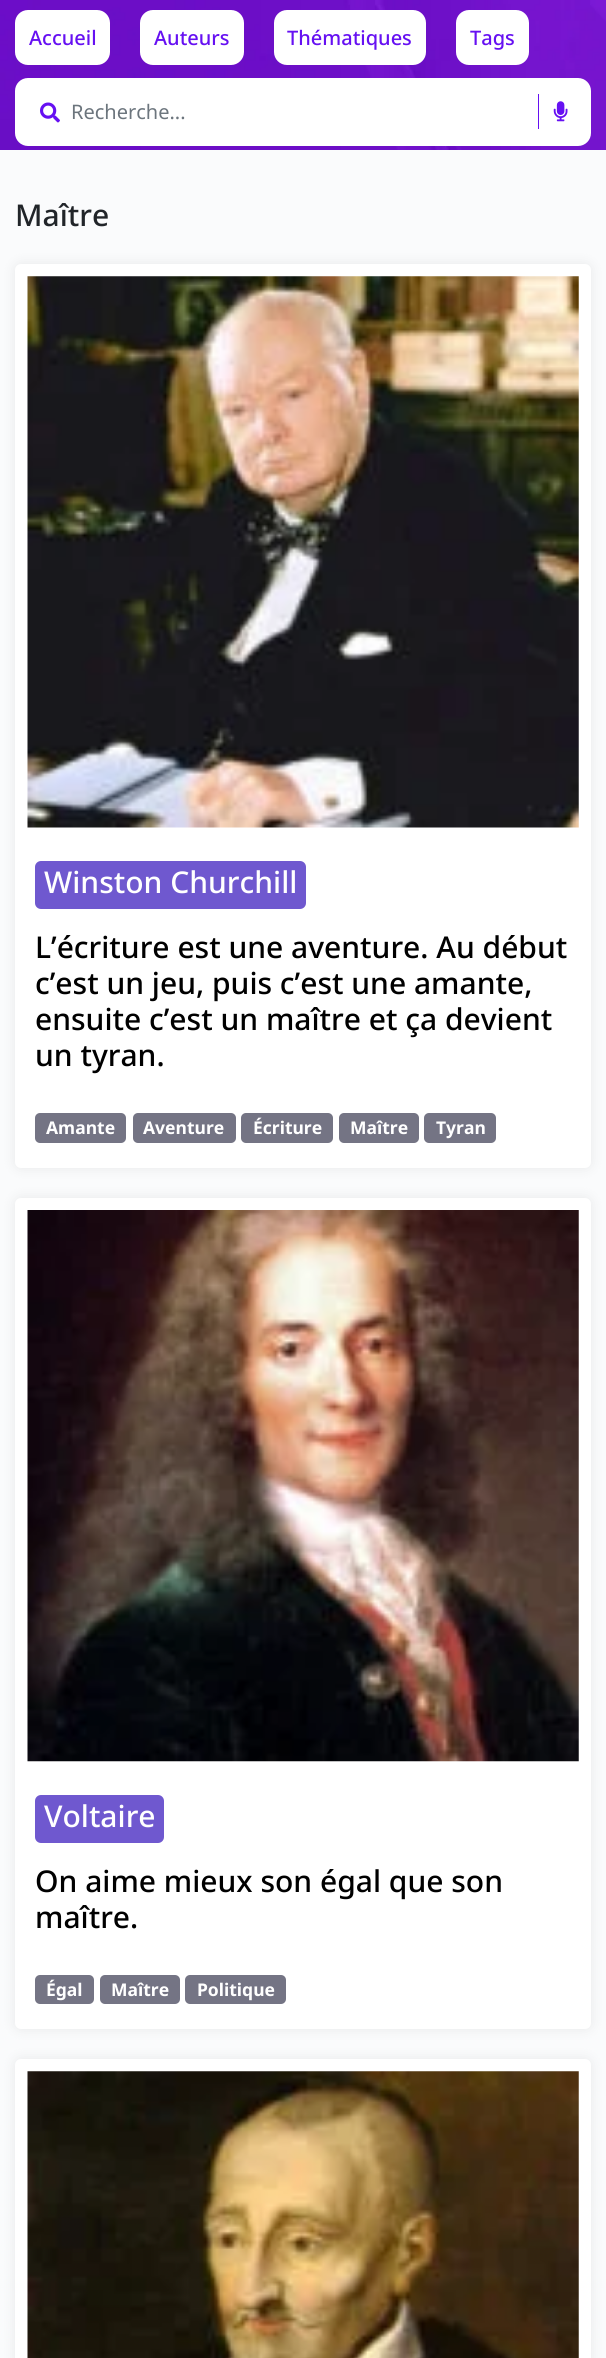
import math
import cairo

surface = cairo.ImageSurface(cairo.FORMAT_RGB24, 606, 2358)
ctx = cairo.Context(surface)
options = cairo.FontOptions()
options.set_hint_metrics(cairo.HINT_METRICS_OFF)
options.set_hint_style(cairo.HINT_STYLE_NONE)
ctx.set_font_options(options)
ctx.set_miter_limit(4)


def set_color(code):
    ctx.set_source_rgb(*(v / 255 for v in bytes.fromhex(code[-6:])))


def draw_text(x, y, s, family, size, color, bold=False, italic=False):
    ctx.select_font_face(family, cairo.FONT_SLANT_ITALIC if italic else cairo.FONT_SLANT_NORMAL, cairo.FONT_WEIGHT_BOLD if bold else cairo.FONT_WEIGHT_NORMAL)
    ctx.set_font_size(size)
    set_color(color)
    ctx.move_to(x, y)
    ctx.show_text(s)


def fill_rect(x, y, w, h, color):
    set_color(color)
    ctx.rectangle(x, y, w, h)
    ctx.fill()


def rounded_rect(x, y, w, h, r):
    ctx.new_sub_path()
    for i, (u, v) in enumerate([(x + w - r, y + h - r), (x + r, y + h - r), (x + r, y + r), (x + w - r, y + r)]):
        ctx.arc(u, v, r, i * math.pi / 2, (i + 1) * math.pi / 2)
    ctx.close_path()


def draw_shadow(x, y, w, h, r, blur, alpha):
    ctx.push_group_with_content(cairo.CONTENT_ALPHA)
    ctx.set_operator(cairo.OPERATOR_SOURCE)
    for i in range(15, -16, -2):
        e = blur * i / 6
        if min(w, h) + 2 * e > 0:
            ctx.set_source_rgba(0, 0, 0, alpha * math.erfc((i - 1) / 8.5) / 2)
            rounded_rect(x - e, y - e, w + 2 * e, h + 2 * e, max(0, min(r + e + blur * .6, min(w, h) / 2 + e)))
            ctx.fill()
    ctx.mask(ctx.pop_group())


def draw_image(path, x, y, w, h):
    ctx.save()
    ctx.set_source_surface(cairo.ImageSurface.create_from_png(path), x, y)
    ctx.rectangle(x, y, w, h)
    ctx.fill()
    ctx.restore()


set_color("#fafbfc")
ctx.paint()
draw_image("assets/img1.png", 0, 0, 606, 150)
set_color("#ffffff")
rounded_rect(17, 12, 91, 51, 11)
ctx.fill_preserve()
ctx.set_line_width(4)
ctx.stroke()
draw_text(29, 45, "Accueil", "Noto Sans Medium", 20, "#6610f2")
set_color("#ffffff")
rounded_rect(142, 12, 100, 51, 11)
ctx.fill_preserve()
ctx.stroke()
draw_text(154, 45, "Auteurs", "Noto Sans Medium", 20, "#6610f2")
set_color("#ffffff")
rounded_rect(276, 12, 148, 51, 11)
ctx.fill_preserve()
ctx.stroke()
draw_text(287, 45, "Thématiques", "Noto Sans Medium", 20, "#6610f2")
set_color("#ffffff")
rounded_rect(458, 12, 69, 51, 11)
ctx.fill_preserve()
ctx.stroke()
draw_text(470, 45, "Tags", "Noto Sans Medium", 20, "#6610f2")
set_color("#ffffff")
rounded_rect(15, 78, 576, 68, 13)
ctx.fill()
draw_image("assets/img2.png", 40, 102, 20, 21)
draw_text(71, 119, "Recherche...", "Noto Sans", 20, "#6c757d")
fill_rect(538, 94, 1, 35, "#6610f2")
draw_image("assets/img3.png", 553, 101, 15, 21)
draw_text(15, 226, "Maître", "Noto Sans Medium", 30, "#212529")
set_color("#9f9f9f")
draw_shadow(15, 264, 576, 904, 6, 6, 0.2)
set_color("#ffffff")
rounded_rect(15, 264, 576, 904, 6)
ctx.fill()
draw_image("assets/img4.png", 27, 276, 552, 552)
set_color("#6f58cf")
rounded_rect(35, 861, 271, 48, 6)
ctx.fill()
draw_text(44, 893, "Winston Churchill", "Noto Sans Medium", 30, "#ffffff")
draw_text(35, 958, "L’écriture est une aventure. Au début", "Noto Sans Medium", 30, "#000000")
draw_text(35, 994, "c’est un jeu, puis c’est une amante,", "Noto Sans Medium", 30, "#000000")
draw_text(35, 1030, "ensuite c’est un maître et ça devient", "Noto Sans Medium", 30, "#000000")
draw_text(35, 1066, "un tyran.", "Noto Sans Medium", 30, "#000000")
set_color("#747484")
rounded_rect(35, 1113, 91, 30, 5)
ctx.fill()
draw_text(46, 1134, "Amante", "Noto Sans", 17.5, "#ffffff", bold=True)
set_color("#747484")
rounded_rect(133, 1113, 103, 30, 5)
ctx.fill()
draw_text(143, 1134, "Aventure", "Noto Sans", 17.5, "#ffffff", bold=True)
set_color("#747484")
rounded_rect(241, 1113, 92, 30, 5)
ctx.fill()
draw_text(253, 1134, "Écriture", "Noto Sans", 17.5, "#ffffff", bold=True)
set_color("#747484")
rounded_rect(339, 1113, 80, 30, 5)
ctx.fill()
draw_text(350, 1134, "Maître", "Noto Sans", 17.5, "#ffffff", bold=True)
set_color("#747484")
rounded_rect(424, 1113, 72, 30, 5)
ctx.fill()
draw_text(436, 1134, "Tyran", "Noto Sans", 17.5, "#ffffff", bold=True)
set_color("#9f9f9f")
draw_shadow(15, 1198, 576, 831, 6, 6, 0.2)
set_color("#ffffff")
rounded_rect(15, 1198, 576, 831, 6)
ctx.fill()
draw_image("assets/img5.png", 27, 1210, 552, 552)
set_color("#6f58cf")
rounded_rect(35, 1795, 129, 48, 6)
ctx.fill()
draw_text(44, 1827, "Voltaire", "Noto Sans Medium", 30, "#ffffff")
draw_text(35, 1892, "On aime mieux son égal que son", "Noto Sans Medium", 30, "#000000")
draw_text(35, 1928, "maître.", "Noto Sans Medium", 30, "#000000")
set_color("#747484")
rounded_rect(35, 1975, 59, 29, 5)
ctx.fill()
draw_text(46, 1996, "Égal", "Noto Sans", 17.5, "#ffffff", bold=True)
set_color("#747484")
rounded_rect(100, 1975, 80, 29, 5)
ctx.fill()
draw_text(111, 1996, "Maître", "Noto Sans", 17.5, "#ffffff", bold=True)
set_color("#747484")
rounded_rect(185, 1975, 101, 29, 5)
ctx.fill()
draw_text(197, 1996, "Politique", "Noto Sans", 17.5, "#ffffff", bold=True)
set_color("#9f9f9f")
draw_shadow(15, 2059, 576, 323, 6, 6, 0.2)
set_color("#ffffff")
rounded_rect(15, 2059, 576, 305, 6)
ctx.fill()
draw_image("assets/img6.png", 27, 2071, 552, 287)
surface.write_to_png("output.png")
